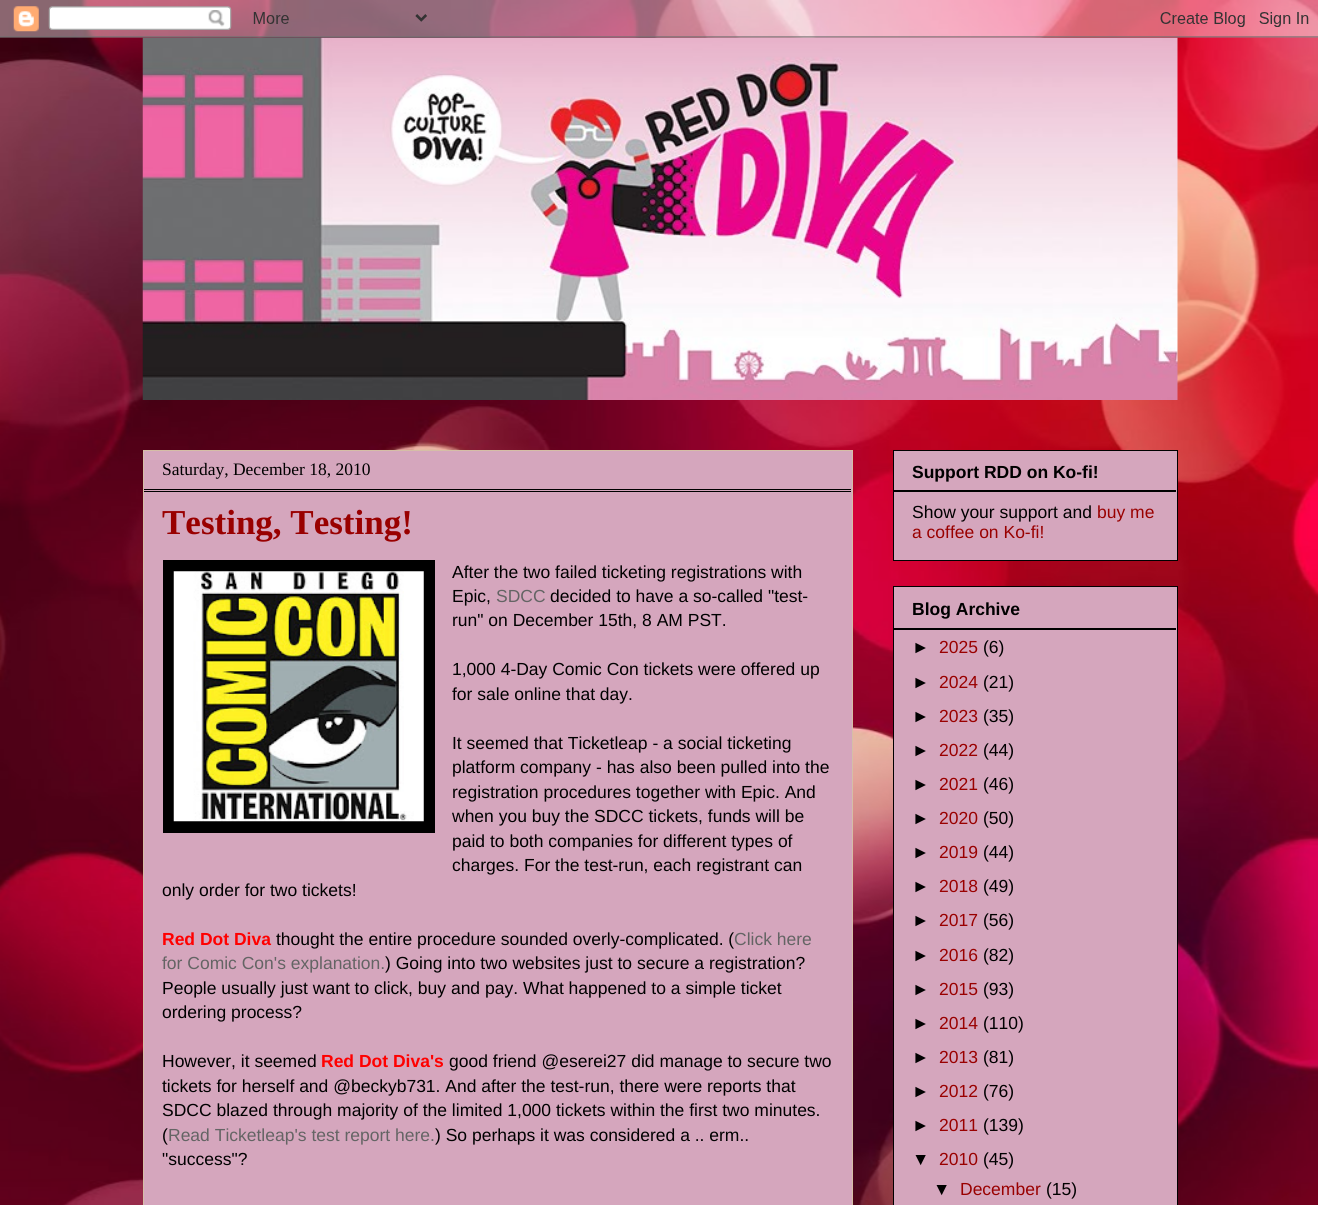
import math
import cairo

surface = cairo.ImageSurface(cairo.FORMAT_RGB24, 1318, 1205)
ctx = cairo.Context(surface)
options = cairo.FontOptions()
options.set_hint_metrics(cairo.HINT_METRICS_OFF)
options.set_hint_style(cairo.HINT_STYLE_NONE)
ctx.set_font_options(options)
ctx.set_miter_limit(4)


def set_color(code):
    ctx.set_source_rgb(*(v / 255 for v in bytes.fromhex(code[-6:])))


def draw_text(x, y, s, family, size, color, bold=False, italic=False):
    ctx.select_font_face(family, cairo.FONT_SLANT_ITALIC if italic else cairo.FONT_SLANT_NORMAL, cairo.FONT_WEIGHT_BOLD if bold else cairo.FONT_WEIGHT_NORMAL)
    ctx.set_font_size(size)
    set_color(color)
    ctx.move_to(x, y)
    ctx.show_text(s)


def fill_rect(x, y, w, h, color):
    set_color(color)
    ctx.rectangle(x, y, w, h)
    ctx.fill()


def draw_image(path, x, y, w, h):
    ctx.save()
    ctx.set_source_surface(cairo.ImageSurface.create_from_png(path), x, y)
    ctx.rectangle(x, y, w, h)
    ctx.fill()
    ctx.restore()


set_color("#ffffff")
ctx.paint()
draw_image("assets/img1.png", 0, 0, 1318, 1205)
draw_image("assets/img3.png", 142, 37, 1036, 363)
draw_image("assets/img2.png", 0, 0, 1318, 38)
set_color("#d5a6bd")
ctx.rectangle(143.5, 450.5, 709, 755)
ctx.fill_preserve()
set_color("#d5bea6")
ctx.set_line_width(1)
ctx.stroke()
fill_rect(144, 489, 707, 1, "#000000")
draw_text(162, 475, "Saturday, December 18, 2010", "Liberation Serif", 17.5, "#000000")
fill_rect(144, 491, 707, 1, "#000000")
draw_text(162, 534, "Testing, Testing!", "Liberation Serif", 35, "#990000", bold=True)
fill_rect(163, 560, 272, 273, "#000000")
draw_image("assets/img4.png", 173, 571, 251, 251)
draw_text(452, 578, "After the two failed ticketing registrations with", "Liberation Sans", 17.5, "#000000")
draw_text(452, 602, "Epic,", "Liberation Sans", 17.5, "#000000")
draw_text(496, 602, "SDCC", "Liberation Sans", 17.5, "#646464")
draw_text(550, 602, "decided to have a so-called \"test-", "Liberation Sans", 17.5, "#000000")
draw_text(452, 626, "run\" on December 15th, 8 AM PST.", "Liberation Sans", 17.5, "#000000")
draw_text(452, 675, "1,000 4-Day Comic Con tickets were offered up", "Liberation Sans", 17.5, "#000000")
draw_text(452, 700, "for sale online that day.", "Liberation Sans", 17.5, "#000000")
draw_text(452, 749, "It seemed that Ticketleap - a social ticketing", "Liberation Sans", 17.5, "#000000")
draw_text(452, 773, "platform company - has also been pulled into the", "Liberation Sans", 17.5, "#000000")
draw_text(452, 798, "registration procedures together with Epic. And", "Liberation Sans", 17.5, "#000000")
draw_text(452, 822, "when you buy the SDCC tickets, funds will be", "Liberation Sans", 17.5, "#000000")
draw_text(452, 847, "paid to both companies for different types of", "Liberation Sans", 17.5, "#000000")
draw_text(452, 871, "charges. For the test-run, each registrant can", "Liberation Sans", 17.5, "#000000")
draw_text(162, 896, "only order for two tickets!", "Liberation Sans", 17.5, "#000000")
draw_text(162, 945, "Red Dot Diva", "Liberation Sans", 17.5, "#ff0000", bold=True)
draw_text(276, 945, "thought the entire procedure sounded overly-complicated. (", "Liberation Sans", 17.5, "#000000")
draw_text(734, 945, "Click here", "Liberation Sans", 17.5, "#646464")
draw_text(162, 969, "for Comic Con's explanation.", "Liberation Sans", 17.5, "#646464")
draw_text(385, 969, ") Going into two websites just to secure a registration?", "Liberation Sans", 17.5, "#000000")
draw_text(162, 994, "People usually just want to click, buy and pay. What happened to a simple ticket", "Liberation Sans", 17.5, "#000000")
draw_text(162, 1018, "ordering process?", "Liberation Sans", 17.5, "#000000")
draw_text(162, 1067, "However, it seemed", "Liberation Sans", 17.5, "#000000")
draw_text(321, 1067, "Red Dot Diva's", "Liberation Sans", 17.5, "#ff0000", bold=True)
draw_text(449, 1067, "good friend @eserei27 did manage to secure two", "Liberation Sans", 17.5, "#000000")
draw_text(162, 1092, "tickets for herself and @beckyb731. And after the test-run, there were reports that", "Liberation Sans", 17.5, "#000000")
draw_text(162, 1116, "SDCC blazed through majority of the limited 1,000 tickets within the first two minutes.", "Liberation Sans", 17.5, "#000000")
draw_text(162, 1141, "(", "Liberation Sans", 17.5, "#000000")
draw_text(168, 1141, "Read Ticketleap's test report here.", "Liberation Sans", 17.5, "#646464")
draw_text(435, 1141, ") So perhaps it was considered a .. erm..", "Liberation Sans", 17.5, "#000000")
draw_text(162, 1165, "\"success\"?", "Liberation Sans", 17.5, "#000000")
set_color("#d5a6bd")
ctx.rectangle(893.5, 450.5, 284, 110)
ctx.fill_preserve()
set_color("#000000")
ctx.stroke()
draw_text(912, 478, "Support RDD on Ko-fi!", "Liberation Sans", 17.5, "#000000", bold=True)
fill_rect(894, 490, 282, 2, "#000000")
draw_text(912, 518, "Show your support and", "Liberation Sans", 17.5, "#000000")
draw_text(1097, 518, "buy me", "Liberation Sans", 17.5, "#990000")
draw_text(912, 538, "a coffee on Ko-fi!", "Liberation Sans", 17.5, "#990000")
set_color("#d5a6bd")
ctx.rectangle(893.5, 586.5, 284, 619)
ctx.fill_preserve()
set_color("#000000")
ctx.stroke()
draw_text(912, 615, "Blog Archive", "Liberation Sans", 17.5, "#000000", bold=True)
fill_rect(894, 628, 282, 2, "#000000")
draw_text(912, 653, "►", "Liberation Sans", 17.5, "#000000")
draw_text(939, 653, "2025", "Liberation Sans", 17.5, "#990000")
draw_text(983, 653, "(6)", "Liberation Sans", 17.5, "#000000")
draw_text(912, 688, "►", "Liberation Sans", 17.5, "#000000")
draw_text(939, 688, "2024", "Liberation Sans", 17.5, "#990000")
draw_text(983, 688, "(21)", "Liberation Sans", 17.5, "#000000")
draw_text(912, 722, "►", "Liberation Sans", 17.5, "#000000")
draw_text(939, 722, "2023", "Liberation Sans", 17.5, "#990000")
draw_text(983, 722, "(35)", "Liberation Sans", 17.5, "#000000")
draw_text(912, 756, "►", "Liberation Sans", 17.5, "#000000")
draw_text(939, 756, "2022", "Liberation Sans", 17.5, "#990000")
draw_text(983, 756, "(44)", "Liberation Sans", 17.5, "#000000")
draw_text(912, 790, "►", "Liberation Sans", 17.5, "#000000")
draw_text(939, 790, "2021", "Liberation Sans", 17.5, "#990000")
draw_text(983, 790, "(46)", "Liberation Sans", 17.5, "#000000")
draw_text(912, 824, "►", "Liberation Sans", 17.5, "#000000")
draw_text(939, 824, "2020", "Liberation Sans", 17.5, "#990000")
draw_text(983, 824, "(50)", "Liberation Sans", 17.5, "#000000")
draw_text(912, 858, "►", "Liberation Sans", 17.5, "#000000")
draw_text(939, 858, "2019", "Liberation Sans", 17.5, "#990000")
draw_text(983, 858, "(44)", "Liberation Sans", 17.5, "#000000")
draw_text(912, 892, "►", "Liberation Sans", 17.5, "#000000")
draw_text(939, 892, "2018", "Liberation Sans", 17.5, "#990000")
draw_text(983, 892, "(49)", "Liberation Sans", 17.5, "#000000")
draw_text(912, 926, "►", "Liberation Sans", 17.5, "#000000")
draw_text(939, 926, "2017", "Liberation Sans", 17.5, "#990000")
draw_text(983, 926, "(56)", "Liberation Sans", 17.5, "#000000")
draw_text(912, 961, "►", "Liberation Sans", 17.5, "#000000")
draw_text(939, 961, "2016", "Liberation Sans", 17.5, "#990000")
draw_text(983, 961, "(82)", "Liberation Sans", 17.5, "#000000")
draw_text(912, 995, "►", "Liberation Sans", 17.5, "#000000")
draw_text(939, 995, "2015", "Liberation Sans", 17.5, "#990000")
draw_text(983, 995, "(93)", "Liberation Sans", 17.5, "#000000")
draw_text(912, 1029, "►", "Liberation Sans", 17.5, "#000000")
draw_text(939, 1029, "2014", "Liberation Sans", 17.5, "#990000")
draw_text(983, 1029, "(110)", "Liberation Sans", 17.5, "#000000")
draw_text(912, 1063, "►", "Liberation Sans", 17.5, "#000000")
draw_text(939, 1063, "2013", "Liberation Sans", 17.5, "#990000")
draw_text(983, 1063, "(81)", "Liberation Sans", 17.5, "#000000")
draw_text(912, 1097, "►", "Liberation Sans", 17.5, "#000000")
draw_text(939, 1097, "2012", "Liberation Sans", 17.5, "#990000")
draw_text(983, 1097, "(76)", "Liberation Sans", 17.5, "#000000")
draw_text(912, 1131, "►", "Liberation Sans", 17.5, "#000000")
draw_text(939, 1131, "2011", "Liberation Sans", 17.5, "#990000")
draw_text(983, 1131, "(139)", "Liberation Sans", 17.5, "#000000")
draw_text(912, 1165, "▼", "Liberation Sans", 17.5, "#000000")
draw_text(939, 1165, "2010", "Liberation Sans", 17.5, "#990000")
draw_text(983, 1165, "(45)", "Liberation Sans", 17.5, "#000000")
draw_text(933, 1195, "▼", "Liberation Sans", 17.5, "#000000")
draw_text(960, 1195, "December", "Liberation Sans", 17.5, "#990000")
draw_text(1046, 1195, "(15)", "Liberation Sans", 17.5, "#000000")
surface.write_to_png("output.png")
